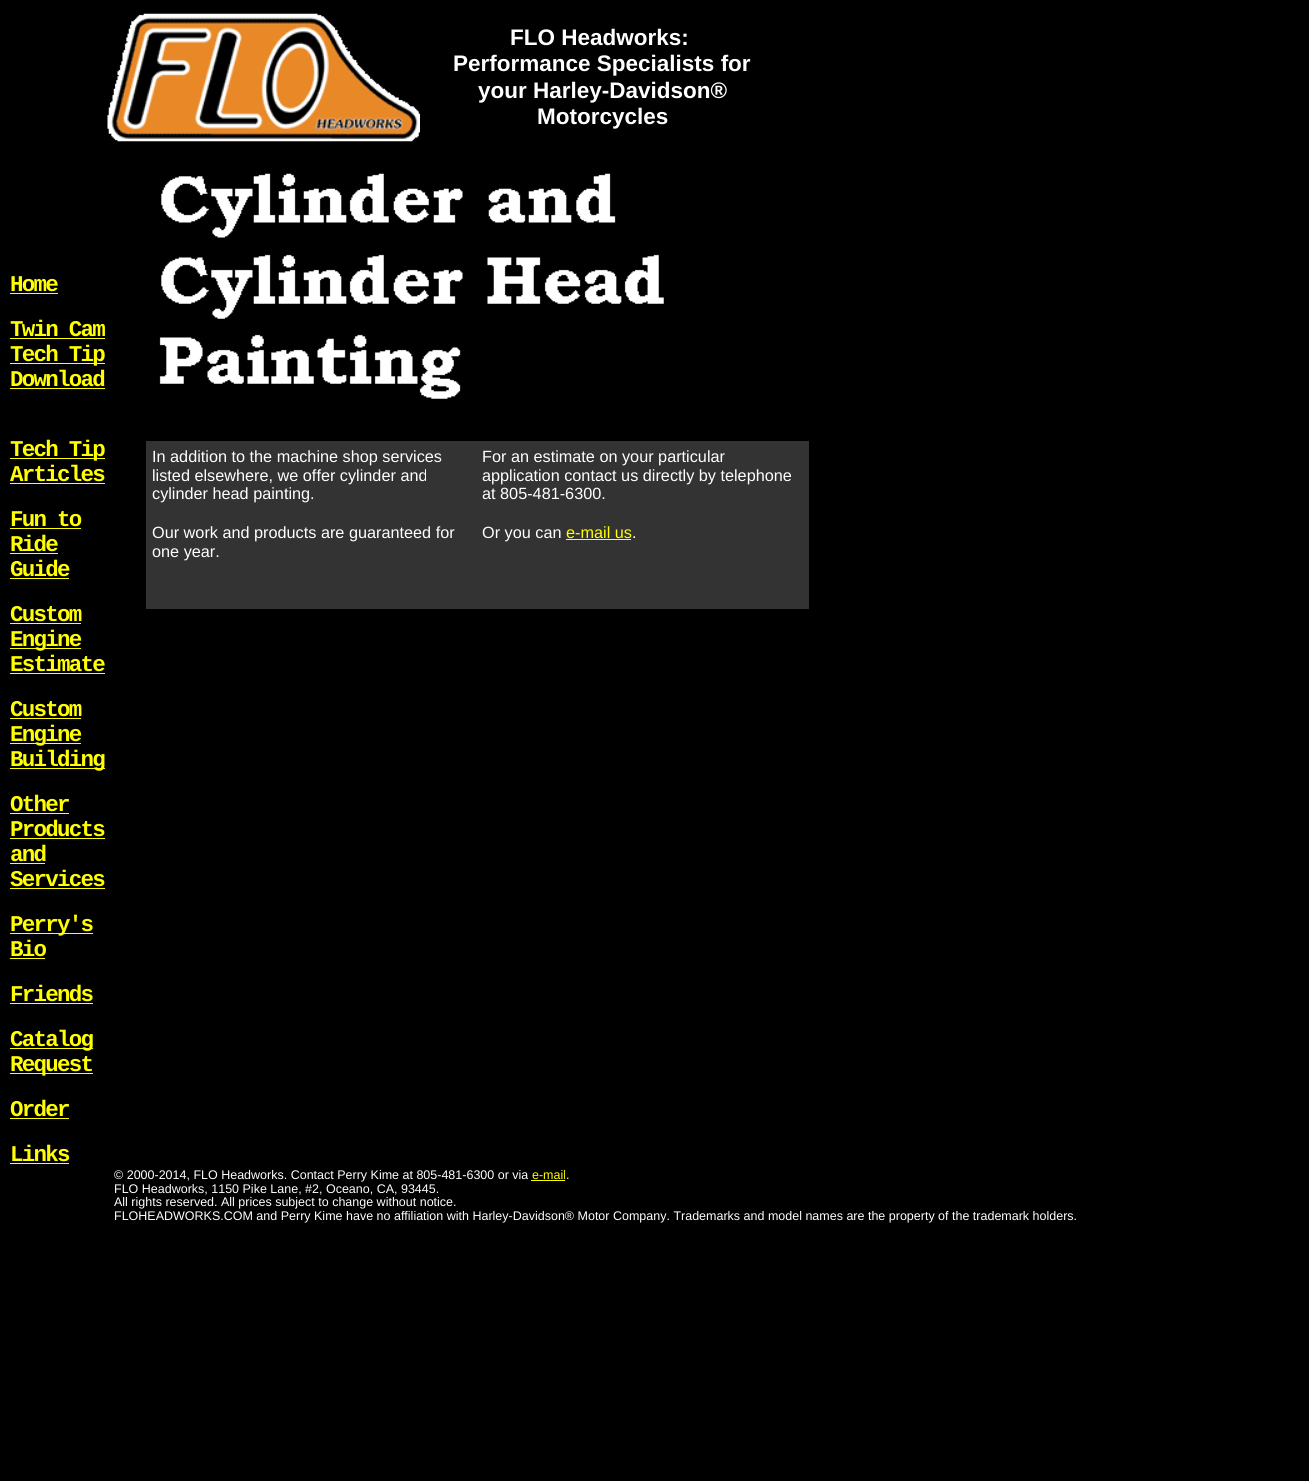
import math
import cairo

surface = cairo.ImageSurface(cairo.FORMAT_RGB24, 1309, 1481)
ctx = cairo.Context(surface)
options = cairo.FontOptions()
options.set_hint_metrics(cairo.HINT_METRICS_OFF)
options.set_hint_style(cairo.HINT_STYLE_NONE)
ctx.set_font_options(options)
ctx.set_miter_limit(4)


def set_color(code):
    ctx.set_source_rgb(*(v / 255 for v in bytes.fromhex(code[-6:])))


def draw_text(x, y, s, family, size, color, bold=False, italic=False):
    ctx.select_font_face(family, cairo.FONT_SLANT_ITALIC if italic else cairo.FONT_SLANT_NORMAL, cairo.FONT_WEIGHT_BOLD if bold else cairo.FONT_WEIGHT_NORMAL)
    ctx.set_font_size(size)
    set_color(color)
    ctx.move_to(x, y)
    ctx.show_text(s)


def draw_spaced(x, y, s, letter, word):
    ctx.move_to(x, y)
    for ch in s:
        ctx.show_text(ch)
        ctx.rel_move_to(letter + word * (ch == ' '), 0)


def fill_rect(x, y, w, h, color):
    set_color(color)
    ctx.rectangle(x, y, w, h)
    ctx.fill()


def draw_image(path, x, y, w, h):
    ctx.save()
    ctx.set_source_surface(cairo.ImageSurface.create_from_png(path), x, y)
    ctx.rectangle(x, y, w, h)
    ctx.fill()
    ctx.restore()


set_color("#000000")
ctx.paint()
draw_image("assets/img1.png", 107, 13, 313, 129)
draw_text(510, 45, "FLO Headworks:", "Liberation Sans", 22.5, "#ffffff", bold=True)
draw_text(453, 71, "Performance Specialists for", "Liberation Sans", 22.5, "#ffffff", bold=True)
draw_text(478, 98, "your Harley-Davidson®", "Liberation Sans", 22.5, "#ffffff", bold=True)
draw_text(537, 124, "Motorcycles", "Liberation Sans", 22.5, "#ffffff", bold=True)
ctx.select_font_face("Liberation Mono", cairo.FONT_SLANT_NORMAL, cairo.FONT_WEIGHT_BOLD)
set_color("#ffff00")
draw_spaced(10, 291, "Home", -1.75, 0)
fill_rect(10, 293, 48, 1, "#ffff00")
draw_spaced(10, 336, "Twin Cam", -1.75, 0)
fill_rect(10, 338, 95, 1, "#ffff00")
fill_rect(10, 363, 95, 1, "#ffff00")
draw_spaced(10, 361, "Tech Tip", -1.75, 0)
draw_spaced(10, 386, "Download", -1.75, 0)
fill_rect(10, 388, 95, 1, "#ffff00")
fill_rect(10, 458, 95, 1, "#ffff00")
draw_spaced(10, 456, "Tech Tip", -1.75, 0)
draw_spaced(10, 481, "Articles", -1.75, 0)
fill_rect(10, 483, 95, 1, "#ffff00")
draw_spaced(10, 526, "Fun to", -1.75, 0)
fill_rect(10, 528, 71, 1, "#ffff00")
draw_spaced(10, 551, "Ride", -1.75, 0)
fill_rect(10, 553, 48, 1, "#ffff00")
draw_spaced(10, 576, "Guide", -1.75, 0)
fill_rect(10, 578, 59, 1, "#ffff00")
draw_spaced(10, 621, "Custom", -1.75, 0)
fill_rect(10, 623, 71, 1, "#ffff00")
fill_rect(10, 648, 71, 1, "#ffff00")
draw_spaced(10, 646, "Engine", -1.75, 0)
draw_spaced(10, 671, "Estimate", -1.75, 0)
fill_rect(10, 673, 95, 1, "#ffff00")
draw_spaced(10, 716, "Custom", -1.75, 0)
fill_rect(10, 718, 71, 1, "#ffff00")
fill_rect(10, 743, 71, 1, "#ffff00")
draw_spaced(10, 741, "Engine", -1.75, 0)
fill_rect(10, 768, 95, 1, "#ffff00")
draw_spaced(10, 766, "Building", -1.75, 0)
draw_spaced(10, 811, "Other", -1.75, 0)
fill_rect(10, 813, 59, 1, "#ffff00")
draw_spaced(10, 836, "Products", -1.75, 0)
fill_rect(10, 838, 95, 1, "#ffff00")
draw_spaced(10, 861, "and", -1.75, 0)
fill_rect(10, 863, 35, 1, "#ffff00")
draw_spaced(10, 886, "Services", -1.75, 0)
fill_rect(10, 888, 95, 1, "#ffff00")
fill_rect(10, 933, 83, 1, "#ffff00")
draw_spaced(10, 931, "Perry's", -1.75, 0)
draw_spaced(10, 956, "Bio", -1.75, 0)
fill_rect(10, 958, 35, 1, "#ffff00")
draw_spaced(10, 1001, "Friends", -1.75, 0)
fill_rect(10, 1003, 83, 1, "#ffff00")
fill_rect(10, 1048, 83, 1, "#ffff00")
draw_spaced(10, 1046, "Catalog", -1.75, 0)
fill_rect(10, 1073, 83, 1, "#ffff00")
draw_spaced(10, 1071, "Request", -1.75, 0)
draw_spaced(10, 1116, "Order", -1.75, 0)
fill_rect(10, 1118, 59, 1, "#ffff00")
draw_spaced(10, 1161, "Links", -1.75, 0)
fill_rect(10, 1163, 59, 1, "#ffff00")
draw_image("assets/img2.png", 159, 173, 505, 226)
fill_rect(146, 441, 663, 168, "#333333")
draw_text(152, 462, "In addition to the machine shop services", "Liberation Sans", 16.25, "#ffffff")
draw_text(152, 481, "listed elsewhere, we offer cylinder and", "Liberation Sans", 16.25, "#ffffff")
draw_text(152, 499, "cylinder head painting.", "Liberation Sans", 16.25, "#ffffff")
draw_text(152, 538, "Our work and products are guaranteed for", "Liberation Sans", 16.25, "#ffffff")
draw_text(152, 557, "one year.", "Liberation Sans", 16.25, "#ffffff")
draw_text(482, 462, "For an estimate on your particular", "Liberation Sans", 16.25, "#ffffff")
draw_text(482, 481, "application contact us directly by telephone", "Liberation Sans", 16.25, "#ffffff")
draw_text(482, 499, "at 805-481-6300.", "Liberation Sans", 16.25, "#ffffff")
draw_text(482, 538, "Or you can", "Liberation Sans", 16.25, "#ffffff")
draw_text(566, 538, "e-mail us", "Liberation Sans", 16.25, "#ffff00")
draw_text(632, 538, ".", "Liberation Sans", 16.25, "#ffffff")
fill_rect(566, 539, 65, 1, "#ffff00")
draw_text(114, 1179, "© 2000-2014, FLO Headworks. Contact Perry Kime at 805-481-6300 or via", "Liberation Sans", 12.5, "#ffffff")
draw_text(532, 1179, "e-mail", "Liberation Sans", 12.5, "#ffff00")
draw_text(566, 1179, ".", "Liberation Sans", 12.5, "#ffffff")
fill_rect(531, 1180, 34, 1, "#ffff00")
draw_text(114, 1193, "FLO Headworks, 1150 Pike Lane, #2, Oceano, CA, 93445.", "Liberation Sans", 12.5, "#ffffff")
draw_text(114, 1206, "All rights reserved. All prices subject to change without notice.", "Liberation Sans", 12.5, "#ffffff")
draw_text(114, 1220, "FLOHEADWORKS.COM and Perry Kime have no affiliation with Harley-Davidson® Motor Company. Trademarks and model names are the property of the trademark holders.", "Liberation Sans", 12.5, "#ffffff")
surface.write_to_png("output.png")
